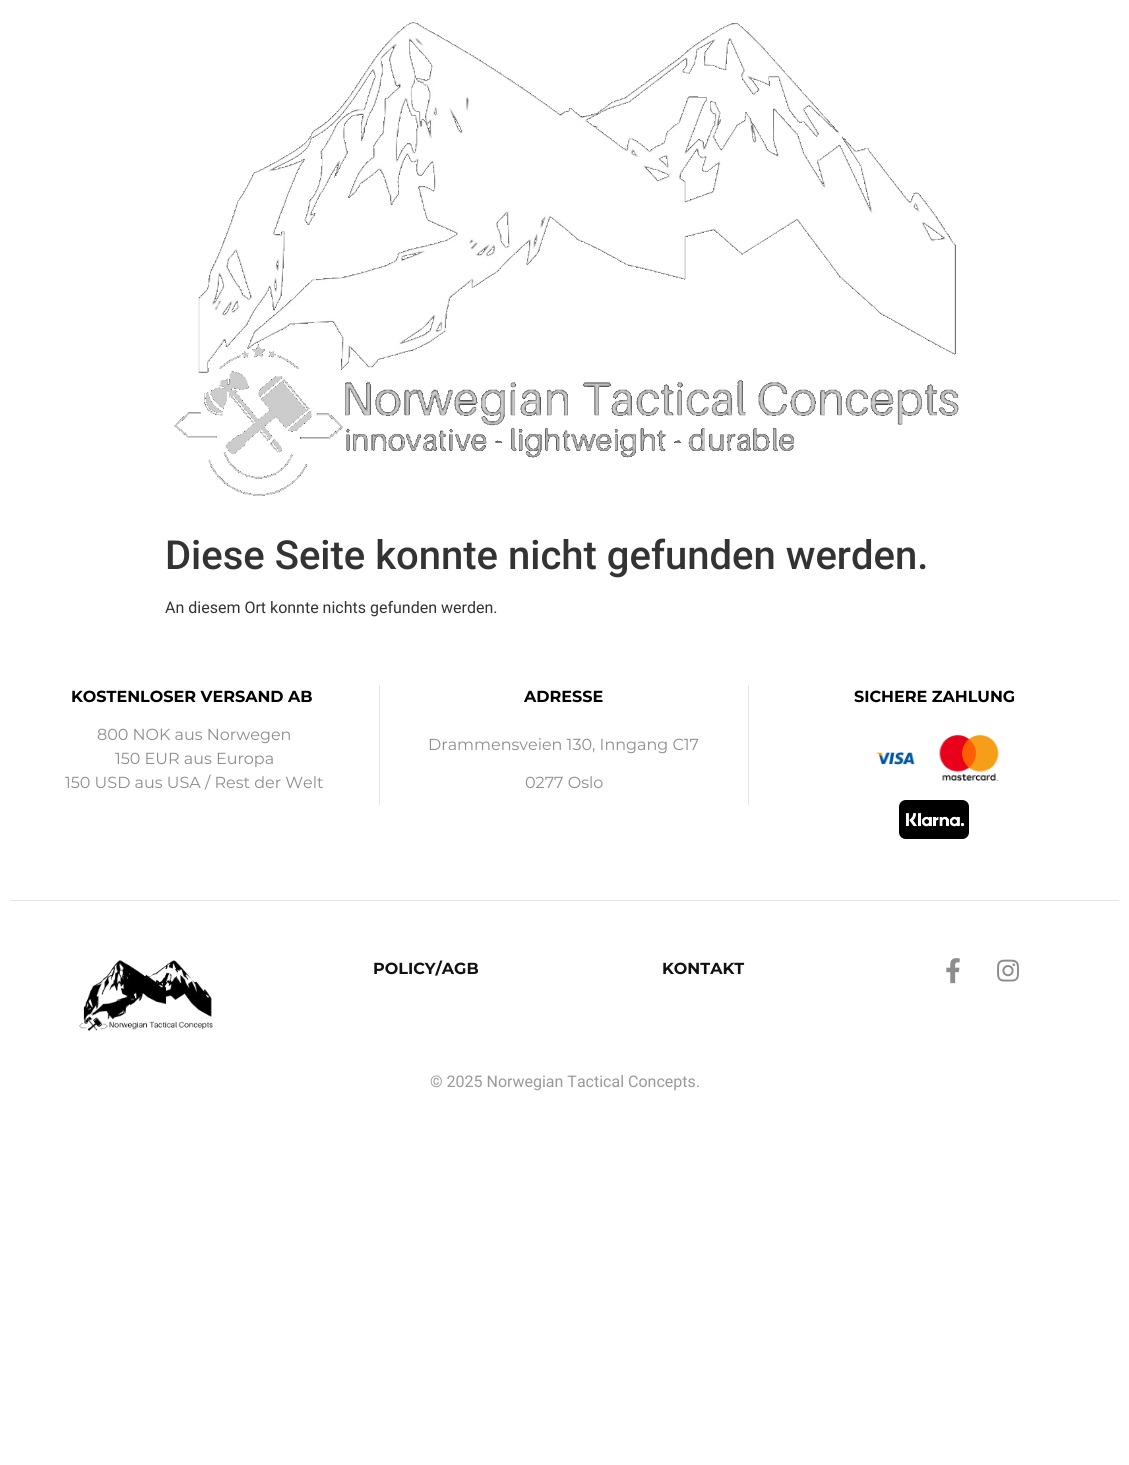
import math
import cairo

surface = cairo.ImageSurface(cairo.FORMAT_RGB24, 1129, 1465)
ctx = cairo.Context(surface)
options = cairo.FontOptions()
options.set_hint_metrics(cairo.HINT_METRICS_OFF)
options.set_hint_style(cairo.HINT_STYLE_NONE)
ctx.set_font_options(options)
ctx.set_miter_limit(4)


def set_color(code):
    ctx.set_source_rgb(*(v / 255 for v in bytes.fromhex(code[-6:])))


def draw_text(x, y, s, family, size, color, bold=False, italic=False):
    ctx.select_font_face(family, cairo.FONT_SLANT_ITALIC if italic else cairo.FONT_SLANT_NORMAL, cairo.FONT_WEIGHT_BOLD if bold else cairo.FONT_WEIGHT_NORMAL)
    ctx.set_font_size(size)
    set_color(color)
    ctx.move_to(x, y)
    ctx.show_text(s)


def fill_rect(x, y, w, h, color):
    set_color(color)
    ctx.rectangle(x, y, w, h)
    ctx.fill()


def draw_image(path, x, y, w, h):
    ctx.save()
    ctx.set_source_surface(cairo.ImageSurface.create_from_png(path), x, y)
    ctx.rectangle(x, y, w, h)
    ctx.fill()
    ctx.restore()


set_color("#ffffff")
ctx.paint()
draw_image("assets/img1.png", 174, 22, 785, 474)
draw_text(165, 569, "Diese Seite konnte nicht gefunden werden.", "Roboto Medium", 40, "#333333")
draw_text(165, 613, "An diesem Ort konnte nichts gefunden werden.", "Roboto", 16, "#333333")
fill_rect(379, 685, 1, 120, "#e5e5e5")
draw_text(71, 702, "KOSTENLOSER VERSAND AB", "Montserrat", 16, "#000000", bold=True)
draw_text(97, 740, "800 NOK aus Norwegen", "Montserrat", 16, "#8d8d8d")
draw_text(115, 764, "150 EUR aus Europa", "Montserrat", 16, "#8d8d8d")
draw_text(65, 788, "150 USD aus USA / Rest der Welt", "Montserrat", 16, "#8d8d8d")
fill_rect(748, 685, 1, 120, "#e5e5e5")
draw_text(524, 702, "ADRESSE", "Montserrat", 16, "#000000", bold=True)
draw_text(428, 750, "Drammensveien 130, Inngang C17", "Montserrat", 16, "#8d8d8d")
draw_text(525, 788, "0277 Oslo", "Montserrat", 16, "#8d8d8d")
draw_text(854, 702, "SICHERE ZAHLUNG", "Montserrat", 16, "#000000", bold=True)
draw_image("assets/img2.png", 875, 752, 40, 13)
draw_image("assets/img3.png", 939, 735, 60, 46)
draw_image("assets/img4.png", 899, 800, 70, 39)
fill_rect(10, 900, 1109, 1, "#e5e5e5")
draw_image("assets/img5.png", 79, 960, 134, 71)
draw_text(373, 974, "POLICY/AGB", "Montserrat", 16, "#111111", bold=True)
draw_text(662, 974, "KONTAKT", "Montserrat", 16, "#111111", bold=True)
draw_image("assets/img6.png", 946, 958, 14, 26)
draw_image("assets/img7.png", 997, 959, 22, 23)
draw_text(430, 1087, "© 2025 Norwegian Tactical Concepts.", "Roboto", 16, "#999999")
surface.write_to_png("output.png")
